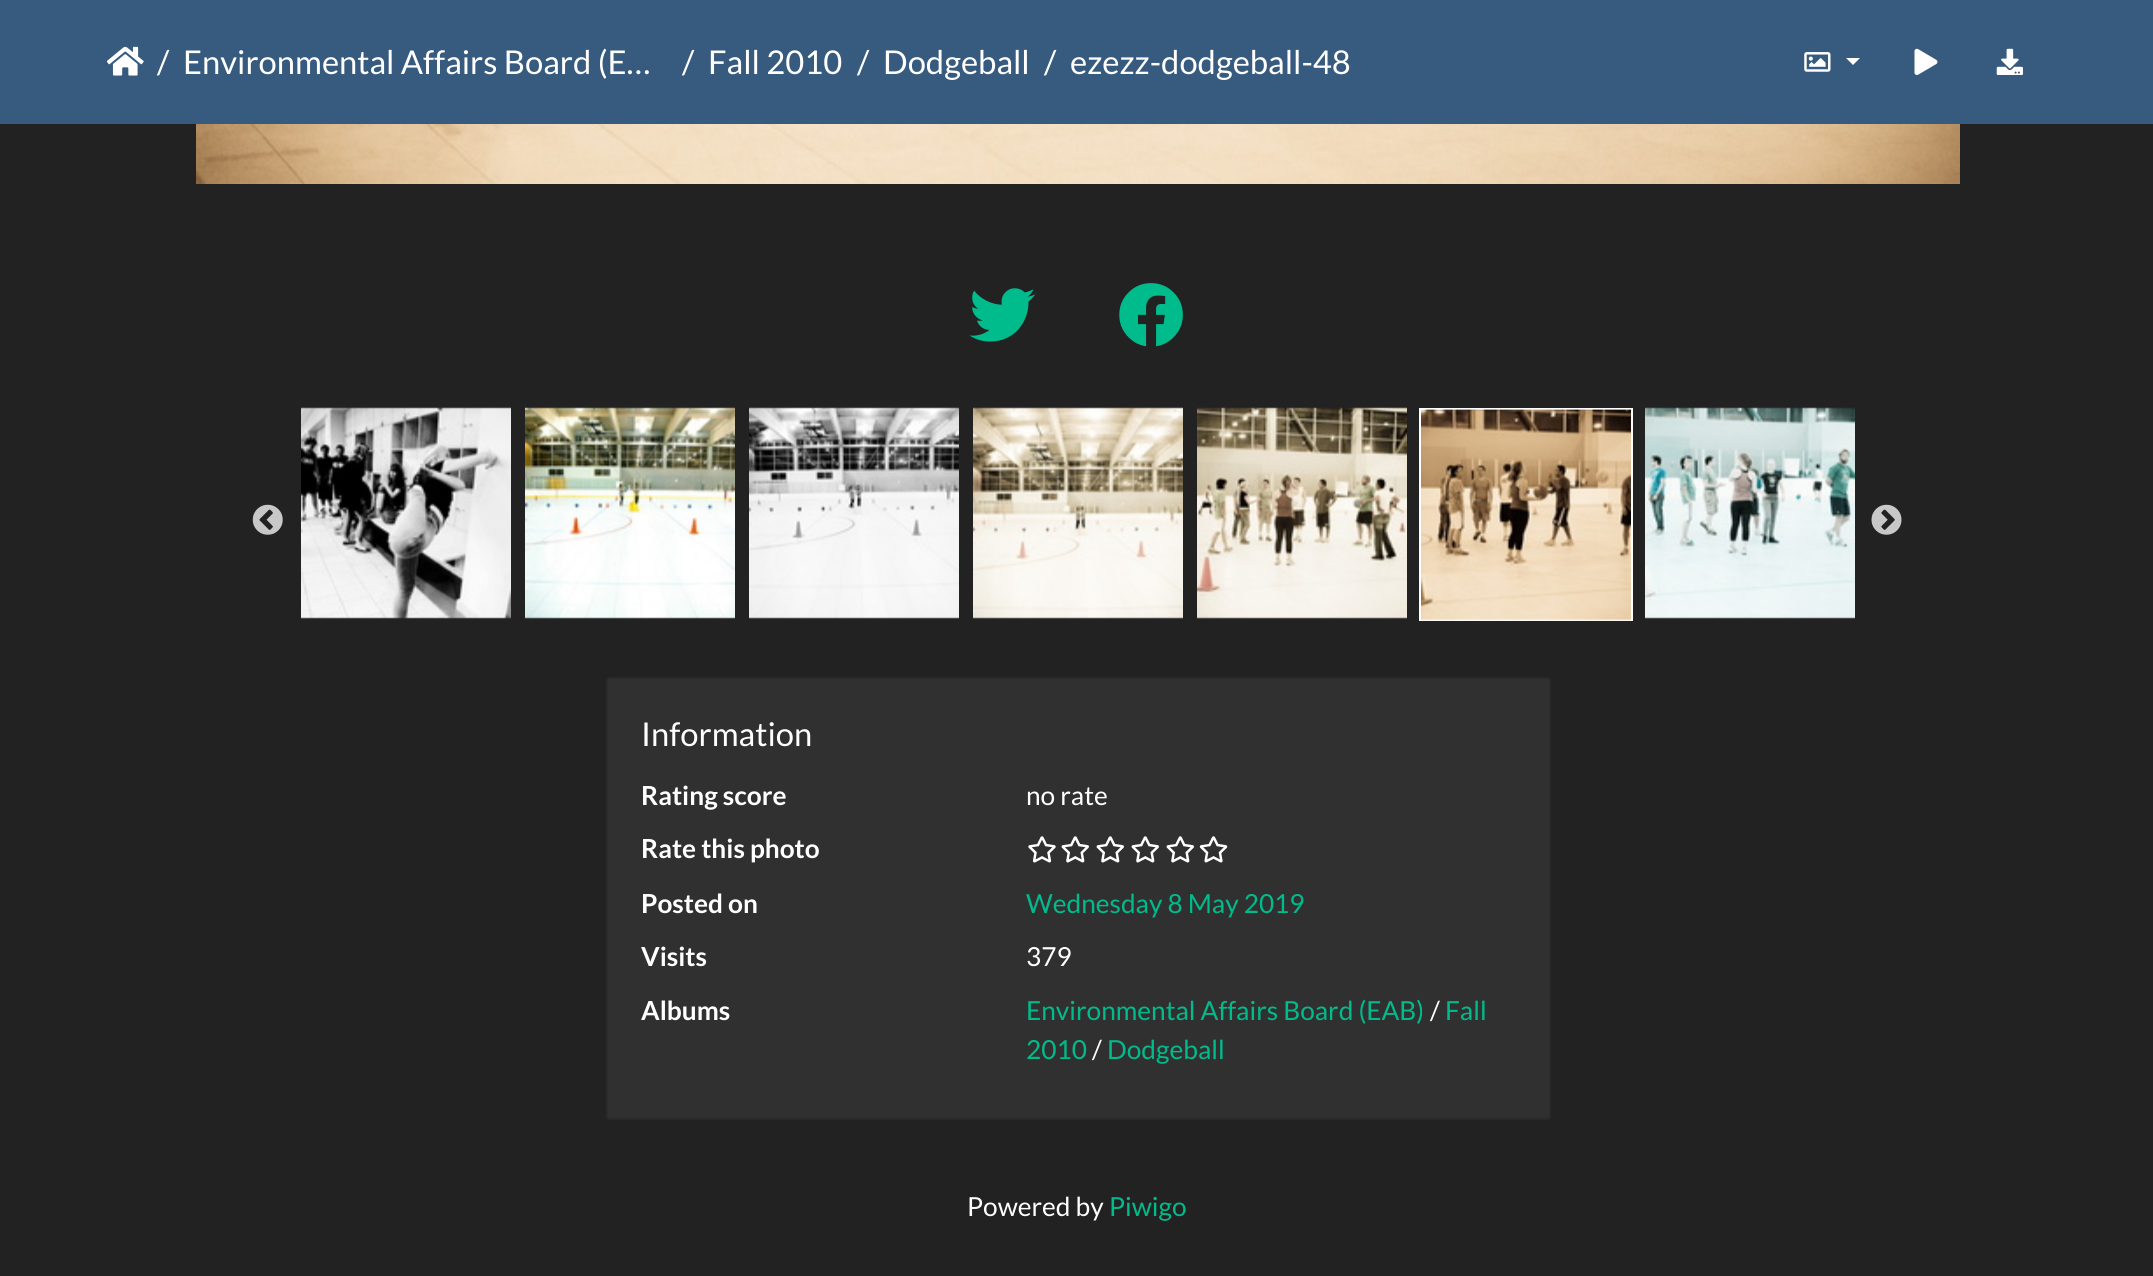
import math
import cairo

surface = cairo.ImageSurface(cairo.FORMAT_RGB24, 2153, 1276)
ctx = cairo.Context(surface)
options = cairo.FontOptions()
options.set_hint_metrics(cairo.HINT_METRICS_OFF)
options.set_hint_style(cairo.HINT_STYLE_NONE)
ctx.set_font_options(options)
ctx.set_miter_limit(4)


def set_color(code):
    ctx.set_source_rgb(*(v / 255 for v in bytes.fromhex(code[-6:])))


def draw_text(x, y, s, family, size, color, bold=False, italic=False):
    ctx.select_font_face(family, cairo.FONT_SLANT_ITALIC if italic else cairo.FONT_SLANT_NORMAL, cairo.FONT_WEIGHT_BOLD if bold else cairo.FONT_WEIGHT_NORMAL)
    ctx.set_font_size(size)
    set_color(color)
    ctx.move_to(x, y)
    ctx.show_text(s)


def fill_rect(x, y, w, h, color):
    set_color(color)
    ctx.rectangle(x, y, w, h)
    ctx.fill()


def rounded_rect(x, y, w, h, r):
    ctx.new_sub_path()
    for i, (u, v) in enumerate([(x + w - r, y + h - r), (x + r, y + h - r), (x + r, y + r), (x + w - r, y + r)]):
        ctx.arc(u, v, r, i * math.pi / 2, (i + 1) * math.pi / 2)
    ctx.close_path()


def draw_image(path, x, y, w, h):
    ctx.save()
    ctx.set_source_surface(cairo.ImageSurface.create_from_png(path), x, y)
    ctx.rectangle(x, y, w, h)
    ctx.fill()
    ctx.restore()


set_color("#222222")
ctx.paint()
fill_rect(0, 0, 2153, 124, "#375a7f")
draw_image("assets/img1.png", 107, 46, 37, 30)
draw_text(157, 74, "/", "Lato", 32.75, "#ffffff")
draw_text(183, 74, "Environmental Affairs Board (E…", "Lato", 32.75, "#ffffff")
draw_text(682, 74, "/", "Lato", 32.75, "#ffffff")
draw_text(708, 74, "Fall 2010", "Lato", 32.75, "#ffffff")
draw_text(857, 74, "/", "Lato", 32.75, "#ffffff")
draw_text(883, 74, "Dodgeball", "Lato", 32.75, "#ffffff")
draw_text(1044, 74, "/", "Lato", 32.75, "#ffffff")
draw_text(1070, 74, "ezezz-dodgeball-48", "Lato", 32.75, "#ffffff")
draw_image("assets/img2.png", 1804, 52, 27, 20)
ctx.new_path()
ctx.move_to(1846, 58)
ctx.line_to(1860, 58)
ctx.line_to(1853, 65)
ctx.close_path()
ctx.fill()
draw_image("assets/img3.png", 1914, 48, 24, 27)
draw_image("assets/img4.png", 1996, 48, 27, 27)
draw_image("assets/img5.png", 196, 124, 1764, 60)
draw_image("assets/img6.png", 969, 288, 66, 54)
draw_image("assets/img7.png", 1119, 283, 64, 64)
draw_image("assets/img8.png", 252, 504, 31, 31)
draw_image("assets/img9.png", 301, 407, 210, 212)
draw_image("assets/img10.png", 525, 407, 210, 212)
draw_image("assets/img11.png", 749, 407, 210, 212)
draw_image("assets/img12.png", 973, 407, 210, 212)
draw_image("assets/img13.png", 1197, 407, 210, 212)
ctx.rectangle(1420, 409, 212, 211)
ctx.stroke()
draw_image("assets/img14.png", 1421, 409, 210, 212)
draw_image("assets/img15.png", 1645, 407, 210, 212)
draw_image("assets/img16.png", 1871, 504, 31, 31)
set_color("#303030")
rounded_rect(606, 677, 945, 443, 4)
ctx.fill()
rounded_rect(607, 678, 943, 441, 3)
ctx.set_source_rgba(0, 0, 0, 0.12)
ctx.stroke()
draw_text(641, 746, "Information", "Lato", 32.75, "#ffffff")
draw_text(641, 805, "Rating score", "Lato", 26.25, "#ffffff", bold=True)
draw_text(1026, 805, "no rate", "Lato", 26.25, "#ffffff")
draw_text(641, 858, "Rate this photo", "Lato", 26.25, "#ffffff", bold=True)
draw_image("assets/img17.png", 1028, 836, 28, 27)
draw_image("assets/img18.png", 1061, 836, 28, 27)
draw_image("assets/img18.png", 1096, 836, 28, 27)
draw_image("assets/img18.png", 1131, 836, 28, 27)
draw_image("assets/img18.png", 1166, 836, 28, 27)
draw_image("assets/img19.png", 1199, 836, 29, 27)
draw_text(641, 913, "Posted on", "Lato", 26.25, "#ffffff", bold=True)
draw_text(1026, 913, "Wednesday 8 May 2019", "Lato", 26.25, "#00bc8c")
draw_text(641, 966, "Visits", "Lato", 26.25, "#ffffff", bold=True)
draw_text(1026, 966, "379", "Lato", 26.25, "#ffffff")
draw_text(641, 1020, "Albums", "Lato", 26.25, "#ffffff", bold=True)
draw_text(1026, 1020, "Environmental Affairs Board (EAB)", "Lato", 26.25, "#00bc8c")
draw_text(1430, 1020, "/", "Lato", 26.25, "#ffffff")
draw_text(1445, 1020, "Fall", "Lato", 26.25, "#00bc8c")
draw_text(1026, 1059, "2010", "Lato", 26.25, "#00bc8c")
draw_text(1092, 1059, "/", "Lato", 26.25, "#ffffff")
draw_text(1107, 1059, "Dodgeball", "Lato", 26.25, "#00bc8c")
draw_text(967, 1216, "Powered by", "Lato", 26.25, "#ffffff")
draw_text(1109, 1216, "Piwigo", "Lato", 26.25, "#00bc8c")
surface.write_to_png("output.png")
